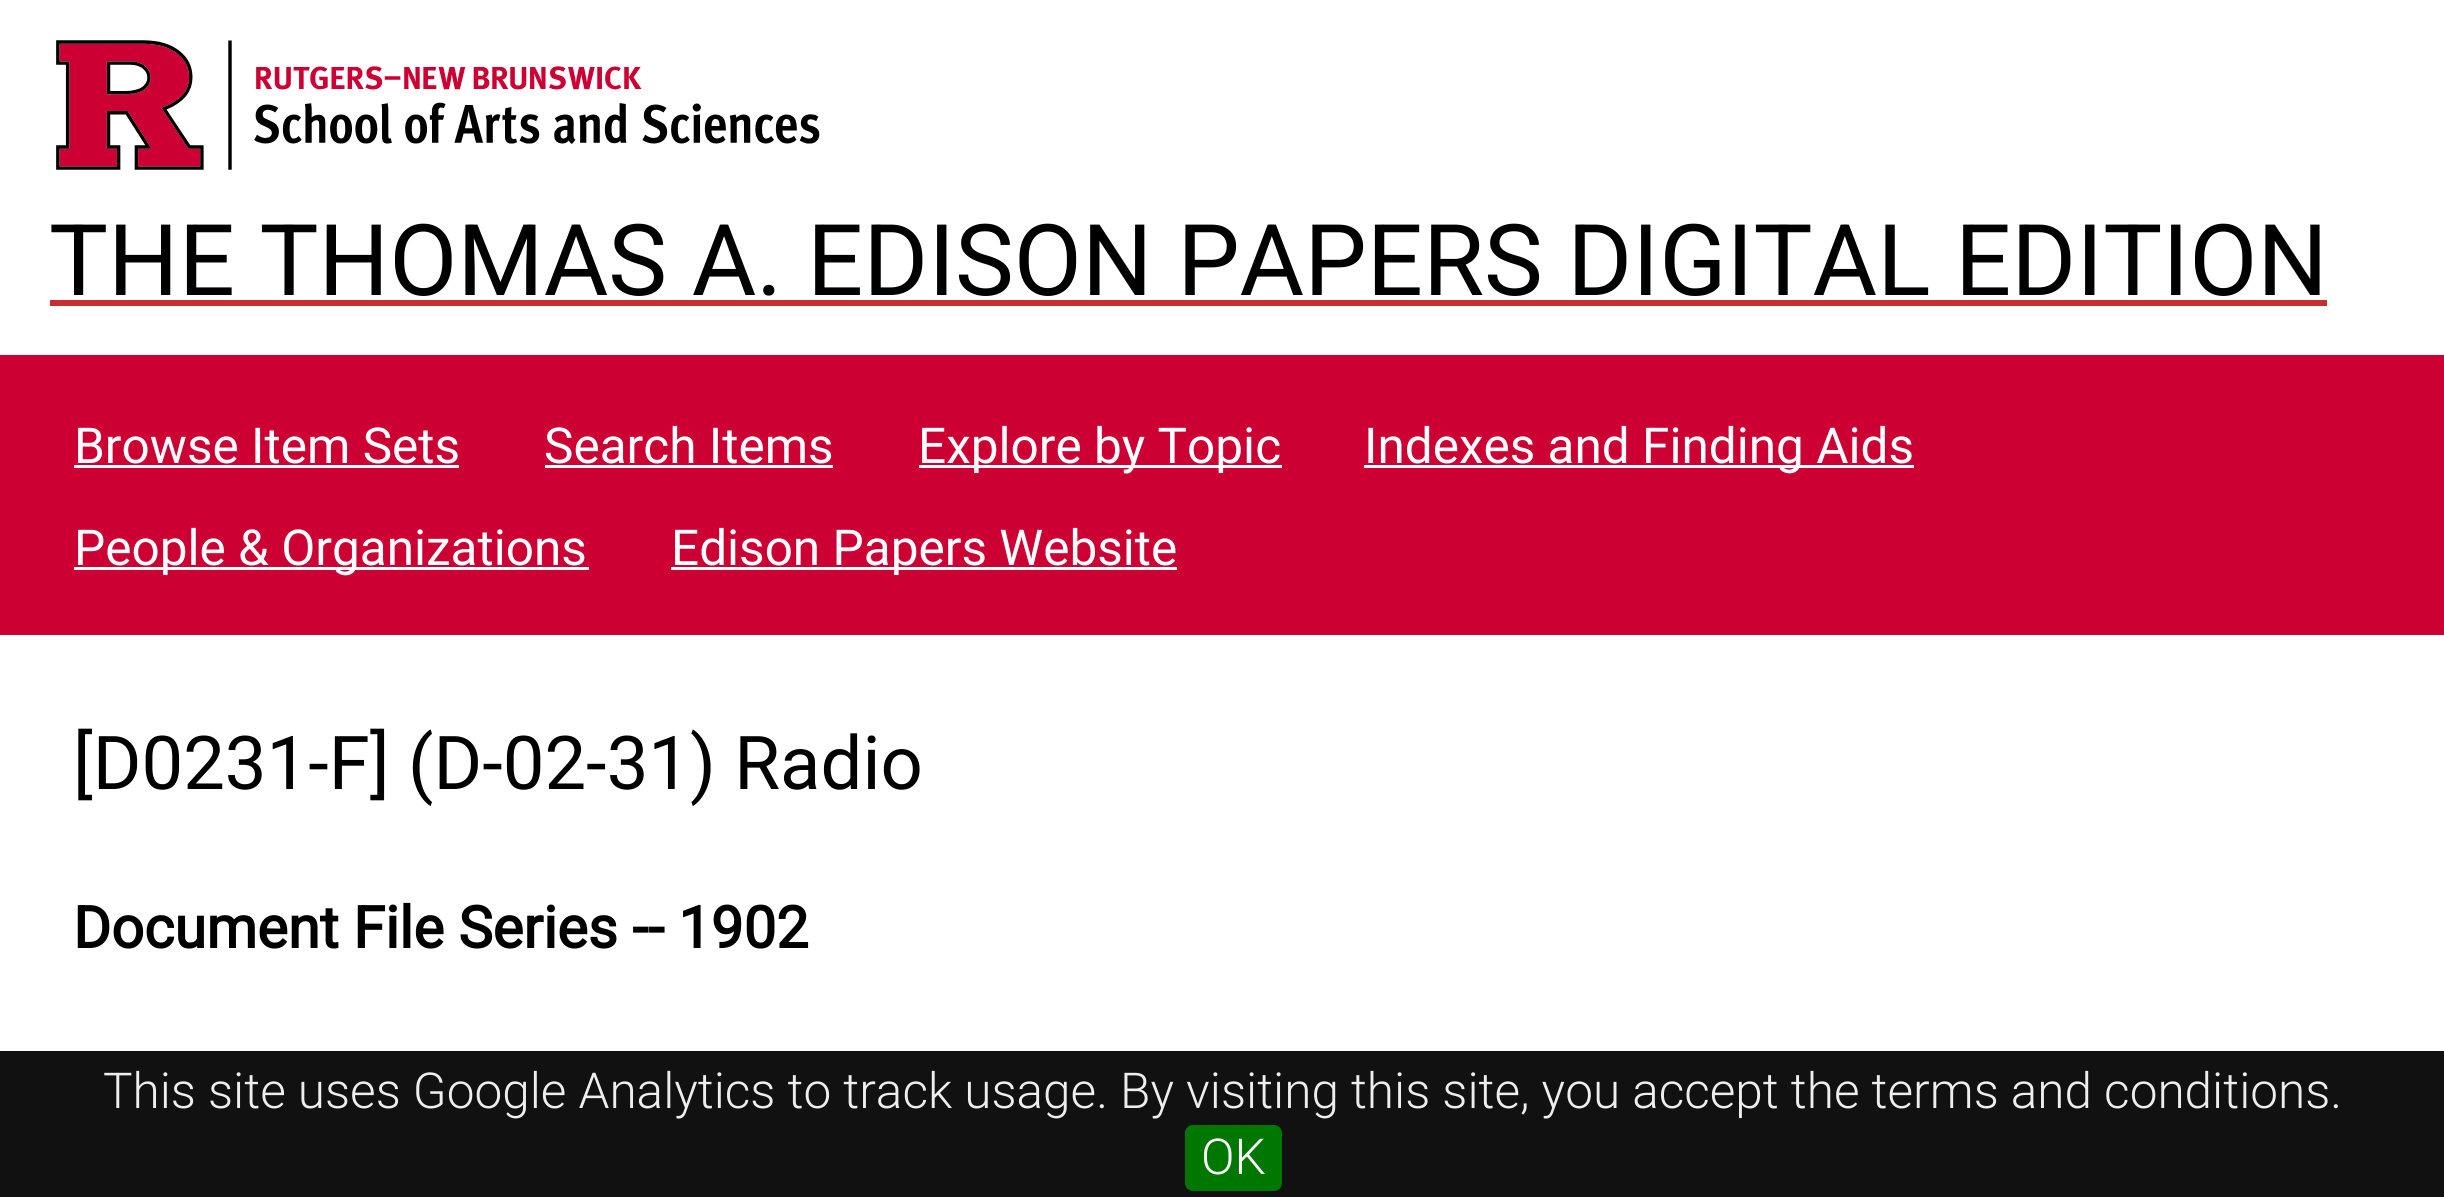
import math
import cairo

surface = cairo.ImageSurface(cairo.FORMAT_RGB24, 2444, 1197)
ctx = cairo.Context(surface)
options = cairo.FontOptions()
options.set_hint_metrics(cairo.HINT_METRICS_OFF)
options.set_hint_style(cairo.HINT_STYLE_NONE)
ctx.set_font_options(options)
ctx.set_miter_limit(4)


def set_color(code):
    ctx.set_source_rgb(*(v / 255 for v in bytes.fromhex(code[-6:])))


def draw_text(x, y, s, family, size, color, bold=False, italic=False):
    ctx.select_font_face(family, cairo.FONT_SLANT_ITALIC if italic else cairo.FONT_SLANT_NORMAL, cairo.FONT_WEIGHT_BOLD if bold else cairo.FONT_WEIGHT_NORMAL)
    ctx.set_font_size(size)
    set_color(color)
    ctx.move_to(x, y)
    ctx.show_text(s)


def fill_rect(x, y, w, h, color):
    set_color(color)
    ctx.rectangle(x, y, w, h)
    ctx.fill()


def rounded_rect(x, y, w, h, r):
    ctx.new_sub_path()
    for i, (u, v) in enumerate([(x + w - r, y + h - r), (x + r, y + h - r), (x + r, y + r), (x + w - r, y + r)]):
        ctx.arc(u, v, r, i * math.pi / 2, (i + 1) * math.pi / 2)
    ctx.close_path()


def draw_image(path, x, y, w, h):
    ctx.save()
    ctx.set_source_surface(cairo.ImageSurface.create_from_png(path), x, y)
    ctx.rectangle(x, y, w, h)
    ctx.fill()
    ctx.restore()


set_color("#ffffff")
ctx.paint()
draw_image("assets/img1.png", 56, 40, 764, 130)
draw_text(49, 295, "THE THOMAS A. EDISON PAPERS DIGITAL EDITION", "Roboto", 99, "#000000")
fill_rect(50, 300, 2277, 6, "#c72e2e")
fill_rect(0, 355, 2444, 280, "#cc0033")
draw_text(74, 463, "Browse Item Sets", "Roboto", 49.5, "#ffffff")
fill_rect(74, 465, 385, 3, "#ffffff")
draw_text(544, 463, "Search Items", "Roboto", 49.5, "#ffffff")
fill_rect(545, 465, 288, 3, "#ffffff")
fill_rect(919, 465, 363, 3, "#ffffff")
draw_text(918, 463, "Explore by Topic", "Roboto", 49.5, "#ffffff")
fill_rect(1364, 465, 550, 3, "#ffffff")
draw_text(1364, 463, "Indexes and Finding Aids", "Roboto", 49.5, "#ffffff")
fill_rect(74, 567, 515, 3, "#ffffff")
draw_text(74, 565, "People & Organizations", "Roboto", 49.5, "#ffffff")
fill_rect(671, 567, 506, 3, "#ffffff")
draw_text(671, 565, "Edison Papers Website", "Roboto", 49.5, "#ffffff")
draw_text(73, 789, "[D0231-F] (D-02-31) Radio", "Roboto", 74.25, "#000000")
draw_text(73, 948, "Document File Series -- 1902", "Roboto", 57.9, "#000000", bold=True)
fill_rect(0, 1051, 2444, 146, "#111111")
draw_text(103, 1108, "This site uses Google Analytics to track usage. By visiting this site, you accept the terms and conditions.", "Roboto Light", 49.5, "#eeeeee")
set_color("#007700")
rounded_rect(1185, 1125, 97, 66, 8)
ctx.fill()
draw_text(1201, 1174, "OK", "Roboto Light", 49.5, "#ffffff")
surface.write_to_png("output.png")
